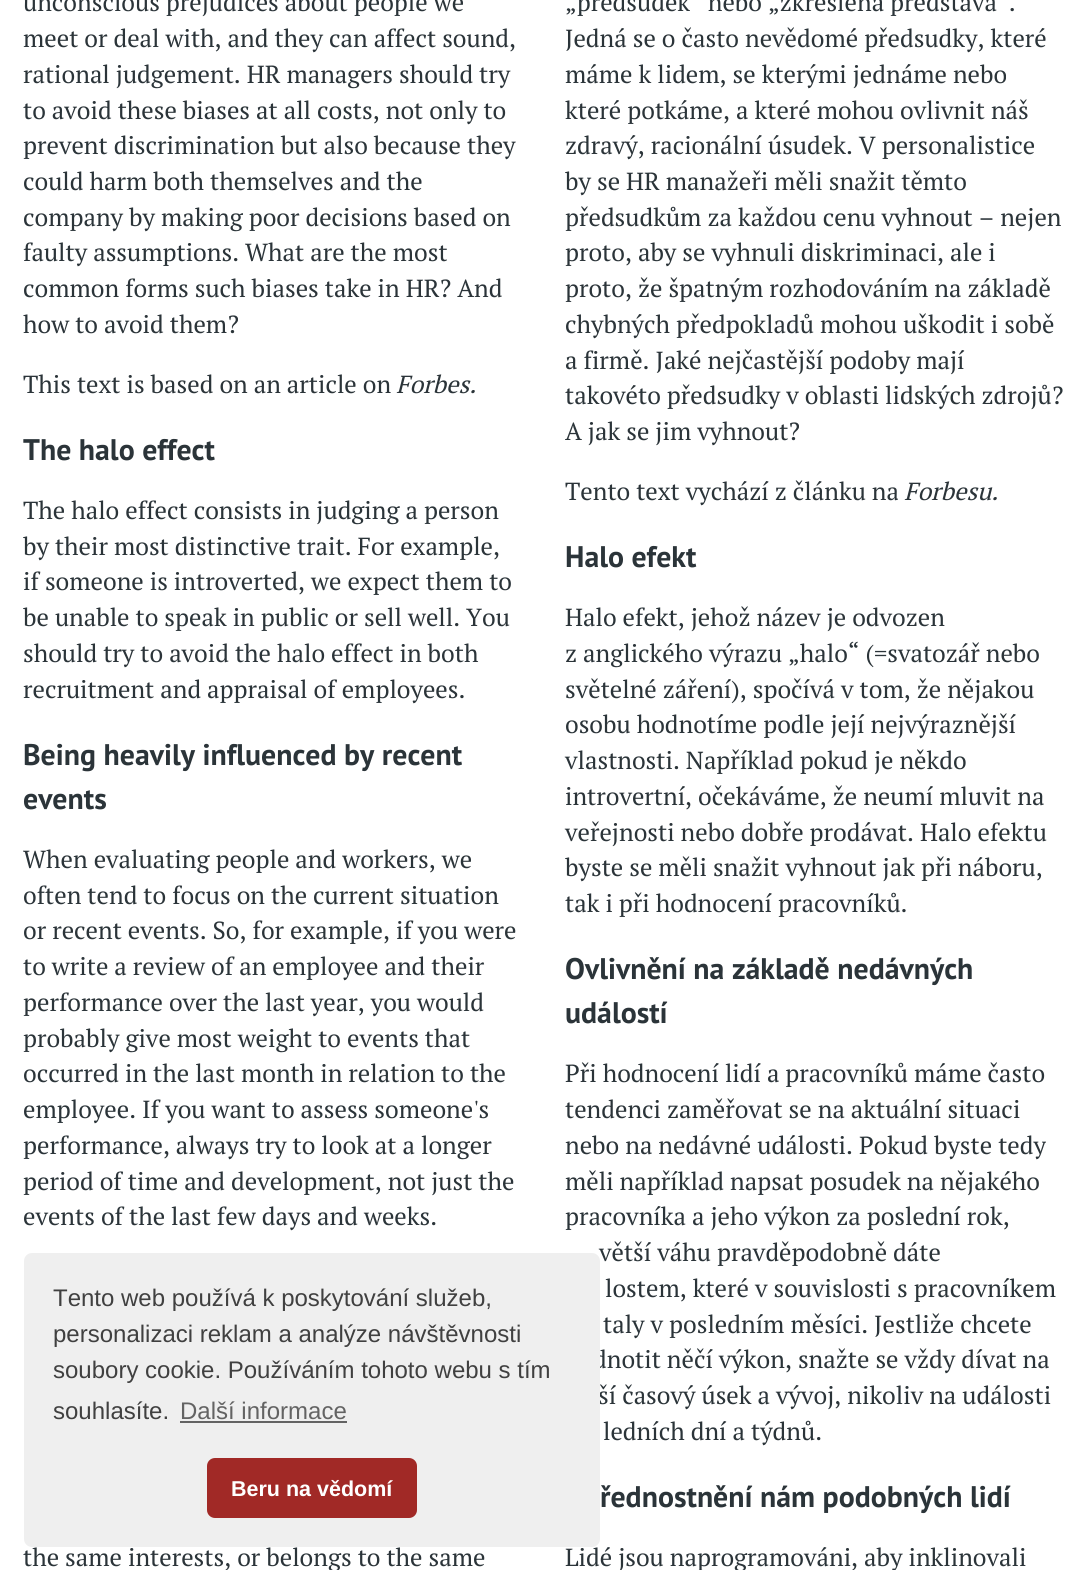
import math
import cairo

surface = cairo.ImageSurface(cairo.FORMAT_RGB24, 1084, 1570)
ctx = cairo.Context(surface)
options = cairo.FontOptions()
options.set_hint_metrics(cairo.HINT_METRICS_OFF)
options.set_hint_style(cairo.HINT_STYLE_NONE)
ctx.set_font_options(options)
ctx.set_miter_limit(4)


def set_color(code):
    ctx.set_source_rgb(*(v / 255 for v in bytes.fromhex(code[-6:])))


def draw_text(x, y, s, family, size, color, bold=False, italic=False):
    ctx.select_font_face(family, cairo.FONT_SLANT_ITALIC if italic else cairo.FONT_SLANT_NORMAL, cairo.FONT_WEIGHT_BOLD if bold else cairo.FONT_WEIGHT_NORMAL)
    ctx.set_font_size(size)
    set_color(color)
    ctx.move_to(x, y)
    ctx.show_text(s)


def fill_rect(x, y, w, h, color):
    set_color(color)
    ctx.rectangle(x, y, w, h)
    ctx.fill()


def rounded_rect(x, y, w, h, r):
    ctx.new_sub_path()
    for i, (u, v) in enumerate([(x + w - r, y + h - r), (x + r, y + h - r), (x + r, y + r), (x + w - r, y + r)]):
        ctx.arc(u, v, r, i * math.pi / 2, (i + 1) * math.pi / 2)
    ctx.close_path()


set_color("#ffffff")
ctx.paint()
draw_text(23, 11, "unconscious prejudices about people we", "PT Serif", 24.7, "#2b3439")
draw_text(23, 47, "meet or deal with, and they can affect sound,", "PT Serif", 24.7, "#2b3439")
draw_text(23, 83, "rational judgement. HR managers should try", "PT Serif", 24.7, "#2b3439")
draw_text(23, 119, "to avoid these biases at all costs, not only to", "PT Serif", 24.7, "#2b3439")
draw_text(23, 154, "prevent discrimination but also because they", "PT Serif", 24.7, "#2b3439")
draw_text(23, 190, "could harm both themselves and the", "PT Serif", 24.7, "#2b3439")
draw_text(23, 226, "company by making poor decisions based on", "PT Serif", 24.7, "#2b3439")
draw_text(23, 261, "faulty assumptions. What are the most", "PT Serif", 24.7, "#2b3439")
draw_text(23, 297, "common forms such biases take in HR? And", "PT Serif", 24.7, "#2b3439")
draw_text(23, 333, "how to avoid them?", "PT Serif", 24.7, "#2b3439")
draw_text(23, 393, "This text is based on an article on", "PT Serif", 24.7, "#2b3439")
draw_text(396, 393, "Forbes.", "PT Serif", 24.7, "#2b3439", italic=True)
draw_text(23, 460, "The halo effect", "PT Sans", 29.8, "#2b3439", bold=True)
draw_text(23, 519, "The halo effect consists in judging a person", "PT Serif", 24.7, "#2b3439")
draw_text(23, 555, "by their most distinctive trait. For example,", "PT Serif", 24.7, "#2b3439")
draw_text(23, 590, "if someone is introverted, we expect them to", "PT Serif", 24.7, "#2b3439")
draw_text(23, 626, "be unable to speak in public or sell well. You", "PT Serif", 24.7, "#2b3439")
draw_text(23, 662, "should try to avoid the halo effect in both", "PT Serif", 24.7, "#2b3439")
draw_text(23, 698, "recruitment and appraisal of employees.", "PT Serif", 24.7, "#2b3439")
draw_text(23, 765, "Being heavily influenced by recent", "PT Sans", 29.8, "#2b3439", bold=True)
draw_text(23, 809, "events", "PT Sans", 29.8, "#2b3439", bold=True)
draw_text(23, 868, "When evaluating people and workers, we", "PT Serif", 24.7, "#2b3439")
draw_text(23, 904, "often tend to focus on the current situation", "PT Serif", 24.7, "#2b3439")
draw_text(23, 939, "or recent events. So, for example, if you were", "PT Serif", 24.7, "#2b3439")
draw_text(23, 975, "to write a review of an employee and their", "PT Serif", 24.7, "#2b3439")
draw_text(23, 1011, "performance over the last year, you would", "PT Serif", 24.7, "#2b3439")
draw_text(23, 1047, "probably give most weight to events that", "PT Serif", 24.7, "#2b3439")
draw_text(23, 1082, "occurred in the last month in relation to the", "PT Serif", 24.7, "#2b3439")
draw_text(23, 1118, "employee. If you want to assess someone's", "PT Serif", 24.7, "#2b3439")
draw_text(23, 1154, "performance, always try to look at a longer", "PT Serif", 24.7, "#2b3439")
draw_text(23, 1190, "period of time and development, not just the", "PT Serif", 24.7, "#2b3439")
draw_text(23, 1225, "events of the last few days and weeks.", "PT Serif", 24.7, "#2b3439")
draw_text(23, 1566, "the same interests, or belongs to the same", "PT Serif", 24.7, "#2b3439")
draw_text(565, 11, "„předsudek“ nebo „zkreslená představa“.", "PT Serif", 24.7, "#2b3439")
draw_text(565, 47, "Jedná se o často nevědomé předsudky, které", "PT Serif", 24.7, "#2b3439")
draw_text(565, 83, "máme k lidem, se kterými jednáme nebo", "PT Serif", 24.7, "#2b3439")
draw_text(565, 119, "které potkáme, a které mohou ovlivnit náš", "PT Serif", 24.7, "#2b3439")
draw_text(565, 154, "zdravý, racionální úsudek. V personalistice", "PT Serif", 24.7, "#2b3439")
draw_text(565, 190, "by se HR manažeři měli snažit těmto", "PT Serif", 24.7, "#2b3439")
draw_text(565, 226, "předsudkům za každou cenu vyhnout – nejen", "PT Serif", 24.7, "#2b3439")
draw_text(565, 261, "proto, aby se vyhnuli diskriminaci, ale i", "PT Serif", 24.7, "#2b3439")
draw_text(565, 297, "proto, že špatným rozhodováním na základě", "PT Serif", 24.7, "#2b3439")
draw_text(565, 333, "chybných předpokladů mohou uškodit i sobě", "PT Serif", 24.7, "#2b3439")
draw_text(565, 369, "a firmě. Jaké nejčastější podoby mají", "PT Serif", 24.7, "#2b3439")
draw_text(565, 404, "takovéto předsudky v oblasti lidských zdrojů?", "PT Serif", 24.7, "#2b3439")
draw_text(565, 440, "A jak se jim vyhnout?", "PT Serif", 24.7, "#2b3439")
draw_text(565, 500, "Tento text vychází z článku na", "PT Serif", 24.7, "#2b3439")
draw_text(904, 500, "Forbesu.", "PT Serif", 24.7, "#2b3439", italic=True)
draw_text(565, 567, "Halo efekt", "PT Sans", 29.8, "#2b3439", bold=True)
draw_text(565, 626, "Halo efekt, jehož název je odvozen", "PT Serif", 24.7, "#2b3439")
draw_text(565, 662, "z anglického výrazu „halo“ (=svatozář nebo", "PT Serif", 24.7, "#2b3439")
draw_text(565, 698, "světelné záření), spočívá v tom, že nějakou", "PT Serif", 24.7, "#2b3439")
draw_text(565, 733, "osobu hodnotíme podle její nejvýraznější", "PT Serif", 24.7, "#2b3439")
draw_text(565, 769, "vlastnosti. Například pokud je někdo", "PT Serif", 24.7, "#2b3439")
draw_text(565, 805, "introvertní, očekáváme, že neumí mluvit na", "PT Serif", 24.7, "#2b3439")
draw_text(565, 841, "veřejnosti nebo dobře prodávat. Halo efektu", "PT Serif", 24.7, "#2b3439")
draw_text(565, 876, "byste se měli snažit vyhnout jak při náboru,", "PT Serif", 24.7, "#2b3439")
draw_text(565, 912, "tak i při hodnocení pracovníků.", "PT Serif", 24.7, "#2b3439")
draw_text(565, 979, "Ovlivnění na základě nedávných", "PT Sans", 29.8, "#2b3439", bold=True)
draw_text(565, 1023, "událostí", "PT Sans", 29.8, "#2b3439", bold=True)
draw_text(565, 1082, "Při hodnocení lidí a pracovníků máme často", "PT Serif", 24.7, "#2b3439")
draw_text(565, 1118, "tendenci zaměřovat se na aktuální situaci", "PT Serif", 24.7, "#2b3439")
draw_text(565, 1154, "nebo na nedávné události. Pokud byste tedy", "PT Serif", 24.7, "#2b3439")
draw_text(565, 1190, "měli například napsat posudek na nějakého", "PT Serif", 24.7, "#2b3439")
draw_text(565, 1225, "pracovníka a jeho výkon za poslední rok,", "PT Serif", 24.7, "#2b3439")
draw_text(599, 1261, "větší váhu pravděpodobně dáte", "PT Serif", 24.7, "#2b3439")
draw_text(605, 1297, "lostem, které v souvislosti s pracovníkem", "PT Serif", 24.7, "#2b3439")
draw_text(603, 1333, "taly v posledním měsíci. Jestliže chcete", "PT Serif", 24.7, "#2b3439")
draw_text(593, 1368, "dnotit něčí výkon, snažte se vždy dívat na", "PT Serif", 24.7, "#2b3439")
draw_text(598, 1404, "ší časový úsek a vývoj, nikoliv na události", "PT Serif", 24.7, "#2b3439")
draw_text(603, 1440, "ledních dní a týdnů.", "PT Serif", 24.7, "#2b3439")
draw_text(600, 1507, "řednostnění nám podobných lidí", "PT Sans", 29.8, "#2b3439", bold=True)
draw_text(565, 1566, "Lidé jsou naprogramováni, aby inklinovali", "PT Serif", 24.7, "#2b3439")
set_color("#efefef")
rounded_rect(24, 1253, 576, 294, 8)
ctx.fill()
draw_text(53, 1306, "Tento web používá k poskytování služeb,", "Liberation Sans", 24, "#404040")
draw_text(53, 1342, "personalizaci reklam a analýze návštěvnosti", "Liberation Sans", 24, "#404040")
draw_text(53, 1378, "soubory cookie. Používáním tohoto webu s tím", "Liberation Sans", 24, "#404040")
draw_text(53, 1419, "souhlasíte.", "Liberation Sans", 24, "#404040")
draw_text(180, 1419, "Další informace", "Liberation Sans", 24, "#636363")
fill_rect(180, 1421, 167, 2, "#636363")
set_color("#a12926")
rounded_rect(207, 1458, 210, 60, 8)
ctx.fill()
draw_text(231, 1496, "Beru na vědomí", "Liberation Sans", 21.5, "#ffffff", bold=True)
surface.write_to_png("output.png")
